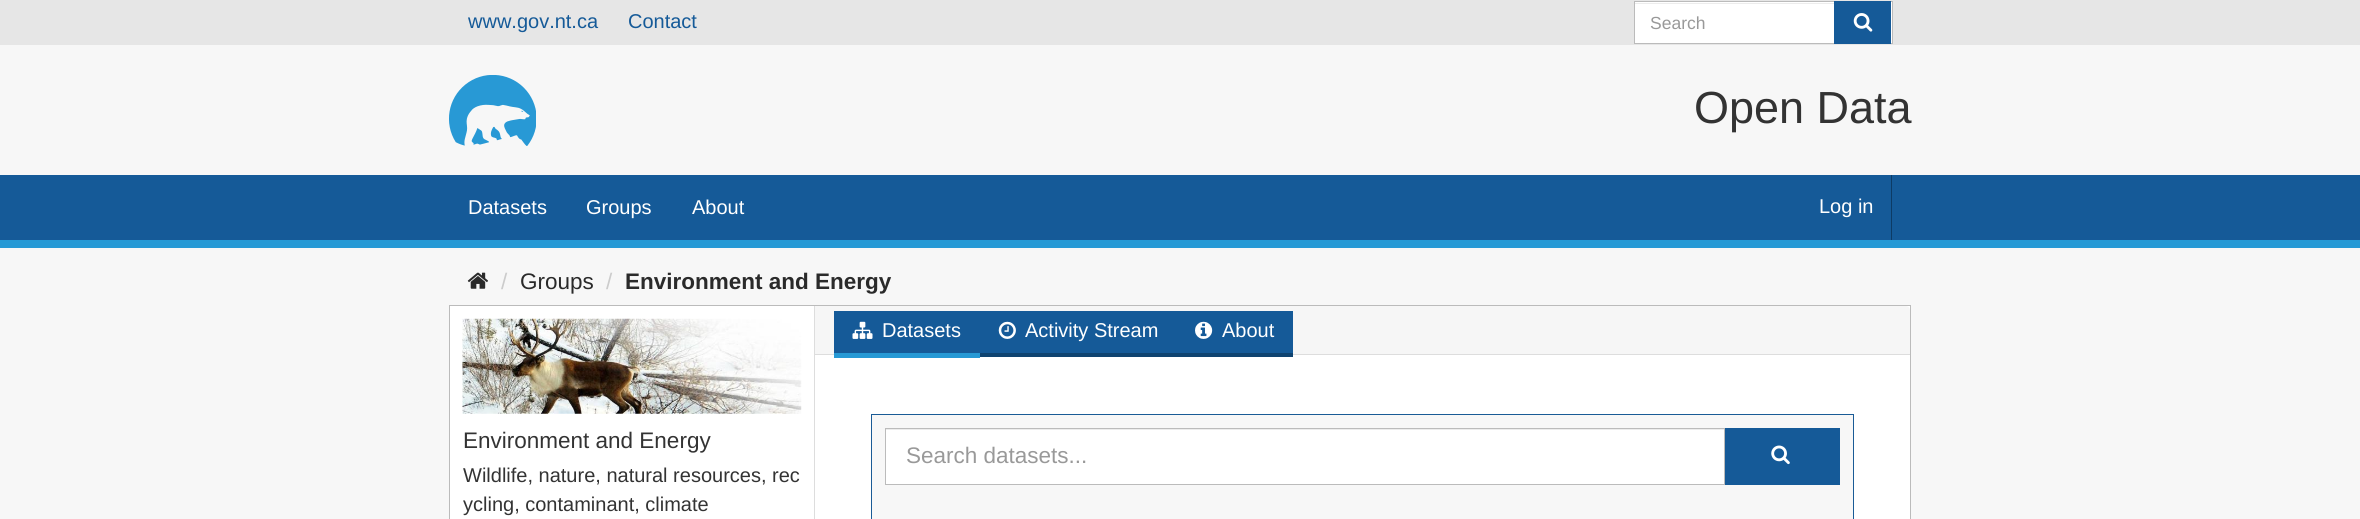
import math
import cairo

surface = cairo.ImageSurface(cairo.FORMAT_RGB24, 2360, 519)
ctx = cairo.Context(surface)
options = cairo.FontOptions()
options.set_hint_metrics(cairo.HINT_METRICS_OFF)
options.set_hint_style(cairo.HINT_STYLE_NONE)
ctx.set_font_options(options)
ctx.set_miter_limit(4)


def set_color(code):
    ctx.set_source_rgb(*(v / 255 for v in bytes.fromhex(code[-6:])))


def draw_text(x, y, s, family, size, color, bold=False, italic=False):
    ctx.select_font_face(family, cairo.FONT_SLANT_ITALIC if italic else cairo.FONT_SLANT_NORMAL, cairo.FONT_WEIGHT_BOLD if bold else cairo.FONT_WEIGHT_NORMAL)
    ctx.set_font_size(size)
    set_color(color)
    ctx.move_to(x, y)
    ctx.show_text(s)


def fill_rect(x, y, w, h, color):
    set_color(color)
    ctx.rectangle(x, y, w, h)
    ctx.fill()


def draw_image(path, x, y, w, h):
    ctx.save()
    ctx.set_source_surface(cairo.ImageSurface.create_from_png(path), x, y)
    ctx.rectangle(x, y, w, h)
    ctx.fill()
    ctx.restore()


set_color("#f7f7f7")
ctx.paint()
fill_rect(0, 0, 2360, 45, "#e6e6e6")
draw_text(468, 28, "www.gov.nt.ca", "Liberation Sans", 20, "#155a98")
draw_text(628, 28, "Contact", "Liberation Sans", 20, "#155a98")
fill_rect(1635, 2, 257, 41, "#ffffff")
fill_rect(1635, 3, 199, 1, "#ececec")
ctx.rectangle(1634.5, 1.5, 258, 42)
set_color("#bbbbbb")
ctx.set_line_width(1)
ctx.stroke()
draw_text(1650, 29, "Search", "Liberation Sans", 17.5, "#999999")
fill_rect(1834, 1, 57, 43, "#155a98")
draw_image("assets/img1.png", 1853, 13, 20, 19)
draw_image("assets/img2.png", 449, 75, 87, 71)
draw_text(1694, 123, "Open Data", "Liberation Sans", 45, "#333333")
fill_rect(0, 175, 2360, 65, "#155a98")
fill_rect(0, 240, 2360, 8, "#2699d5")
draw_text(468, 214, "Datasets", "Liberation Sans", 20, "#ffffff")
draw_text(586, 214, "Groups", "Liberation Sans", 20, "#ffffff")
draw_text(692, 214, "About", "Liberation Sans", 20, "#ffffff")
fill_rect(1891, 175, 1, 65, "#0d3b65")
draw_text(1819, 213, "Log in", "Liberation Sans", 20, "#ffffff")
draw_image("assets/img3.png", 467, 272, 21, 17)
draw_text(501, 289, "/", "Liberation Sans", 22.5, "#cccccc")
draw_text(520, 289, "Groups", "Liberation Sans", 22.5, "#2a2a2a")
draw_text(606, 289, "/", "Liberation Sans", 22.5, "#cccccc")
draw_text(625, 289, "Environment and Energy", "Liberation Sans", 22.5, "#2a2a2a", bold=True)
set_color("#ffffff")
ctx.rectangle(449.5, 305.5, 1461, 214)
ctx.fill_preserve()
set_color("#bbbbbb")
ctx.stroke()
fill_rect(814, 306, 1, 213, "#dddddd")
set_color("#f6f6f6")
ctx.new_path()
ctx.move_to(815, 306)
ctx.line_to(1906, 306)
ctx.curve_to(1908, 306, 1910, 308, 1910, 310)
ctx.line_to(1910, 355)
ctx.line_to(815, 355)
ctx.close_path()
ctx.fill()
fill_rect(815, 354, 1095, 1, "#dddddd")
fill_rect(834, 311, 459, 42, "#155a98")
fill_rect(834, 353, 146, 5, "#2699d5")
draw_image("assets/img4.png", 852, 321, 21, 18)
draw_text(882, 337, "Datasets", "Liberation Sans", 20, "#ffffff")
fill_rect(980, 353, 313, 4, "#0f4370")
draw_image("assets/img5.png", 998, 321, 18, 18)
draw_text(1025, 337, "Activity Stream", "Liberation Sans", 20, "#ffffff")
draw_image("assets/img6.png", 1195, 321, 18, 18)
draw_text(1222, 337, "About", "Liberation Sans", 20, "#ffffff")
set_color("#f7f7f7")
ctx.rectangle(871.5, 414.5, 982, 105)
ctx.fill_preserve()
set_color("#1a5b96")
ctx.stroke()
fill_rect(886, 430, 838, 54, "#ffffff")
fill_rect(886, 429, 838, 1, "#ececec")
ctx.rectangle(885.5, 428.5, 839, 56)
set_color("#bbbbbb")
ctx.stroke()
draw_text(906, 463, "Search datasets...", "Liberation Sans", 22.5, "#999999")
fill_rect(1725, 428, 115, 57, "#155a98")
draw_image("assets/img7.png", 1771, 445, 19, 20)
draw_image("assets/img8.png", 462, 318, 340, 96)
draw_text(463, 448, "Environment and Energy", "Liberation Sans", 22.5, "#333333")
draw_text(463, 482, "Wildlife, nature, natural resources, rec", "Liberation Sans", 20, "#333333")
draw_text(463, 511, "ycling, contaminant, climate", "Liberation Sans", 20, "#333333")
surface.write_to_png("output.png")
